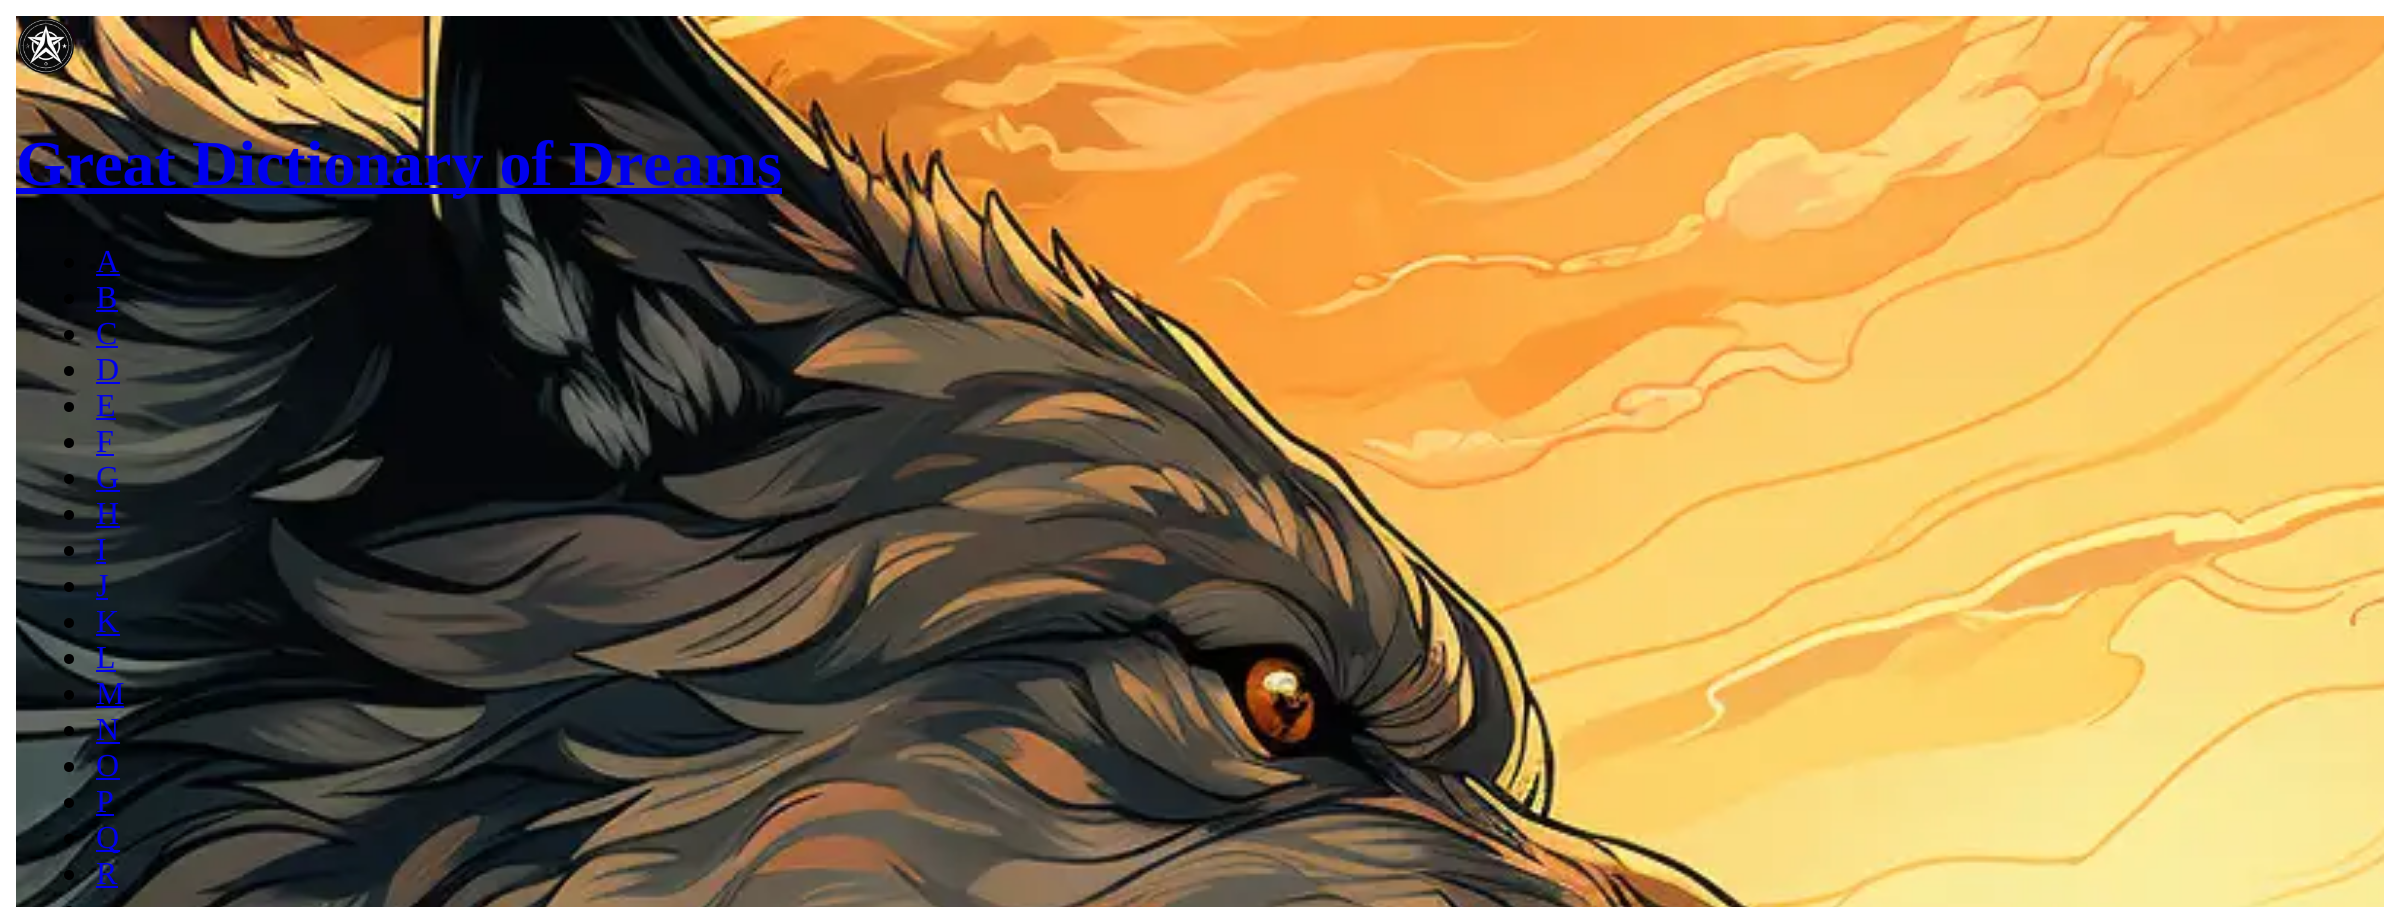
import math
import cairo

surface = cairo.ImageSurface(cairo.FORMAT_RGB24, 2400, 907)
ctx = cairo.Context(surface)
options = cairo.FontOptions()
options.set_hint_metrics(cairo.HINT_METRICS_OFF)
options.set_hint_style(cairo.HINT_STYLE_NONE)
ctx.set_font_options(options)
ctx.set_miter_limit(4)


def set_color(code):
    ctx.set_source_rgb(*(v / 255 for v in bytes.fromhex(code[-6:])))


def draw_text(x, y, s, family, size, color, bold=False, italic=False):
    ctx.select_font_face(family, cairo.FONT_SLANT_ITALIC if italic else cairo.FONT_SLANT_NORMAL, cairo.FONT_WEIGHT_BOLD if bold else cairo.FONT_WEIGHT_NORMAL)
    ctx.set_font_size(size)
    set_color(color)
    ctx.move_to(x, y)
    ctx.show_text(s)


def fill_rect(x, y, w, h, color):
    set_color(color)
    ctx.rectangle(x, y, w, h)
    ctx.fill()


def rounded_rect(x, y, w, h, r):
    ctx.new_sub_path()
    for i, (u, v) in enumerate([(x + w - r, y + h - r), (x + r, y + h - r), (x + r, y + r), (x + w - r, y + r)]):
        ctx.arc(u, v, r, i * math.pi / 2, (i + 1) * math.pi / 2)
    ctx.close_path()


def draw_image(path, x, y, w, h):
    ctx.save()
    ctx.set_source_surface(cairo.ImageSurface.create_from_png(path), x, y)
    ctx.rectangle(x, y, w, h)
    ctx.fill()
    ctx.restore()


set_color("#ffffff")
ctx.paint()
draw_image("assets/img1.png", 16, 16, 2368, 891)
draw_image("assets/img2.png", 18, 18, 56, 56)
fill_rect(16, 188, 766, 6, "#0000ee")
draw_text(16, 185, "Great Dictionary of Dreams", "Liberation Serif", 64, "#0000ee", bold=True)
set_color("#000000")
ctx.new_path()
ctx.arc(69, 263, 5, 0, 2 * math.pi)
ctx.fill()
draw_text(96, 272, "A", "Liberation Serif", 32, "#0000ee")
fill_rect(96, 274, 24, 2, "#0000ee")
set_color("#000000")
ctx.new_path()
ctx.arc(69, 299, 5, 0, 2 * math.pi)
ctx.fill()
draw_text(96, 308, "B", "Liberation Serif", 32, "#0000ee")
fill_rect(96, 310, 22, 2, "#0000ee")
set_color("#000000")
ctx.new_path()
ctx.arc(69, 335, 5, 0, 2 * math.pi)
ctx.fill()
draw_text(96, 344, "C", "Liberation Serif", 32, "#0000ee")
fill_rect(96, 346, 22, 2, "#0000ee")
set_color("#000000")
ctx.new_path()
ctx.arc(69, 371, 5, 0, 2 * math.pi)
ctx.fill()
draw_text(96, 380, "D", "Liberation Serif", 32, "#0000ee")
fill_rect(96, 382, 24, 2, "#0000ee")
set_color("#000000")
ctx.new_path()
ctx.arc(69, 407, 5, 0, 2 * math.pi)
ctx.fill()
draw_text(96, 416, "E", "Liberation Serif", 32, "#0000ee")
fill_rect(96, 418, 20, 2, "#0000ee")
set_color("#000000")
ctx.new_path()
ctx.arc(69, 443, 5, 0, 2 * math.pi)
ctx.fill()
draw_text(96, 452, "F", "Liberation Serif", 32, "#0000ee")
fill_rect(96, 454, 18, 2, "#0000ee")
set_color("#000000")
ctx.new_path()
ctx.arc(69, 479, 5, 0, 2 * math.pi)
ctx.fill()
draw_text(96, 488, "G", "Liberation Serif", 32, "#0000ee")
fill_rect(96, 490, 24, 2, "#0000ee")
set_color("#000000")
ctx.new_path()
ctx.arc(69, 515, 5, 0, 2 * math.pi)
ctx.fill()
draw_text(96, 524, "H", "Liberation Serif", 32, "#0000ee")
fill_rect(96, 526, 24, 2, "#0000ee")
set_color("#000000")
ctx.new_path()
ctx.arc(69, 551, 5, 0, 2 * math.pi)
ctx.fill()
draw_text(96, 560, "I", "Liberation Serif", 32, "#0000ee")
fill_rect(96, 562, 10, 2, "#0000ee")
set_color("#000000")
ctx.new_path()
ctx.arc(69, 587, 5, 0, 2 * math.pi)
ctx.fill()
draw_text(96, 596, "J", "Liberation Serif", 32, "#0000ee")
fill_rect(96, 598, 12, 2, "#0000ee")
set_color("#000000")
ctx.new_path()
ctx.arc(69, 623, 5, 0, 2 * math.pi)
ctx.fill()
draw_text(96, 632, "K", "Liberation Serif", 32, "#0000ee")
fill_rect(96, 634, 24, 2, "#0000ee")
set_color("#000000")
ctx.new_path()
ctx.arc(69, 659, 5, 0, 2 * math.pi)
ctx.fill()
draw_text(96, 668, "L", "Liberation Serif", 32, "#0000ee")
fill_rect(96, 670, 20, 2, "#0000ee")
set_color("#000000")
ctx.new_path()
ctx.arc(69, 695, 5, 0, 2 * math.pi)
ctx.fill()
draw_text(96, 704, "M", "Liberation Serif", 32, "#0000ee")
fill_rect(96, 706, 28, 2, "#0000ee")
set_color("#000000")
ctx.new_path()
ctx.arc(69, 731, 5, 0, 2 * math.pi)
ctx.fill()
draw_text(96, 740, "N", "Liberation Serif", 32, "#0000ee")
fill_rect(96, 742, 24, 2, "#0000ee")
set_color("#000000")
ctx.new_path()
ctx.arc(69, 767, 5, 0, 2 * math.pi)
ctx.fill()
draw_text(96, 776, "O", "Liberation Serif", 32, "#0000ee")
fill_rect(96, 778, 24, 2, "#0000ee")
set_color("#000000")
ctx.new_path()
ctx.arc(69, 803, 5, 0, 2 * math.pi)
ctx.fill()
draw_text(96, 812, "P", "Liberation Serif", 32, "#0000ee")
fill_rect(96, 814, 18, 2, "#0000ee")
set_color("#000000")
ctx.new_path()
ctx.arc(69, 839, 5, 0, 2 * math.pi)
ctx.fill()
fill_rect(96, 850, 24, 2, "#0000ee")
draw_text(96, 848, "Q", "Liberation Serif", 32, "#0000ee")
set_color("#000000")
ctx.new_path()
ctx.arc(69, 875, 5, 0, 2 * math.pi)
ctx.fill()
draw_text(96, 884, "R", "Liberation Serif", 32, "#0000ee")
fill_rect(96, 886, 22, 2, "#0000ee")
set_color("#000000")
rounded_rect(64, 906, 10, 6, 5)
ctx.fill()
surface.write_to_png("output.png")
